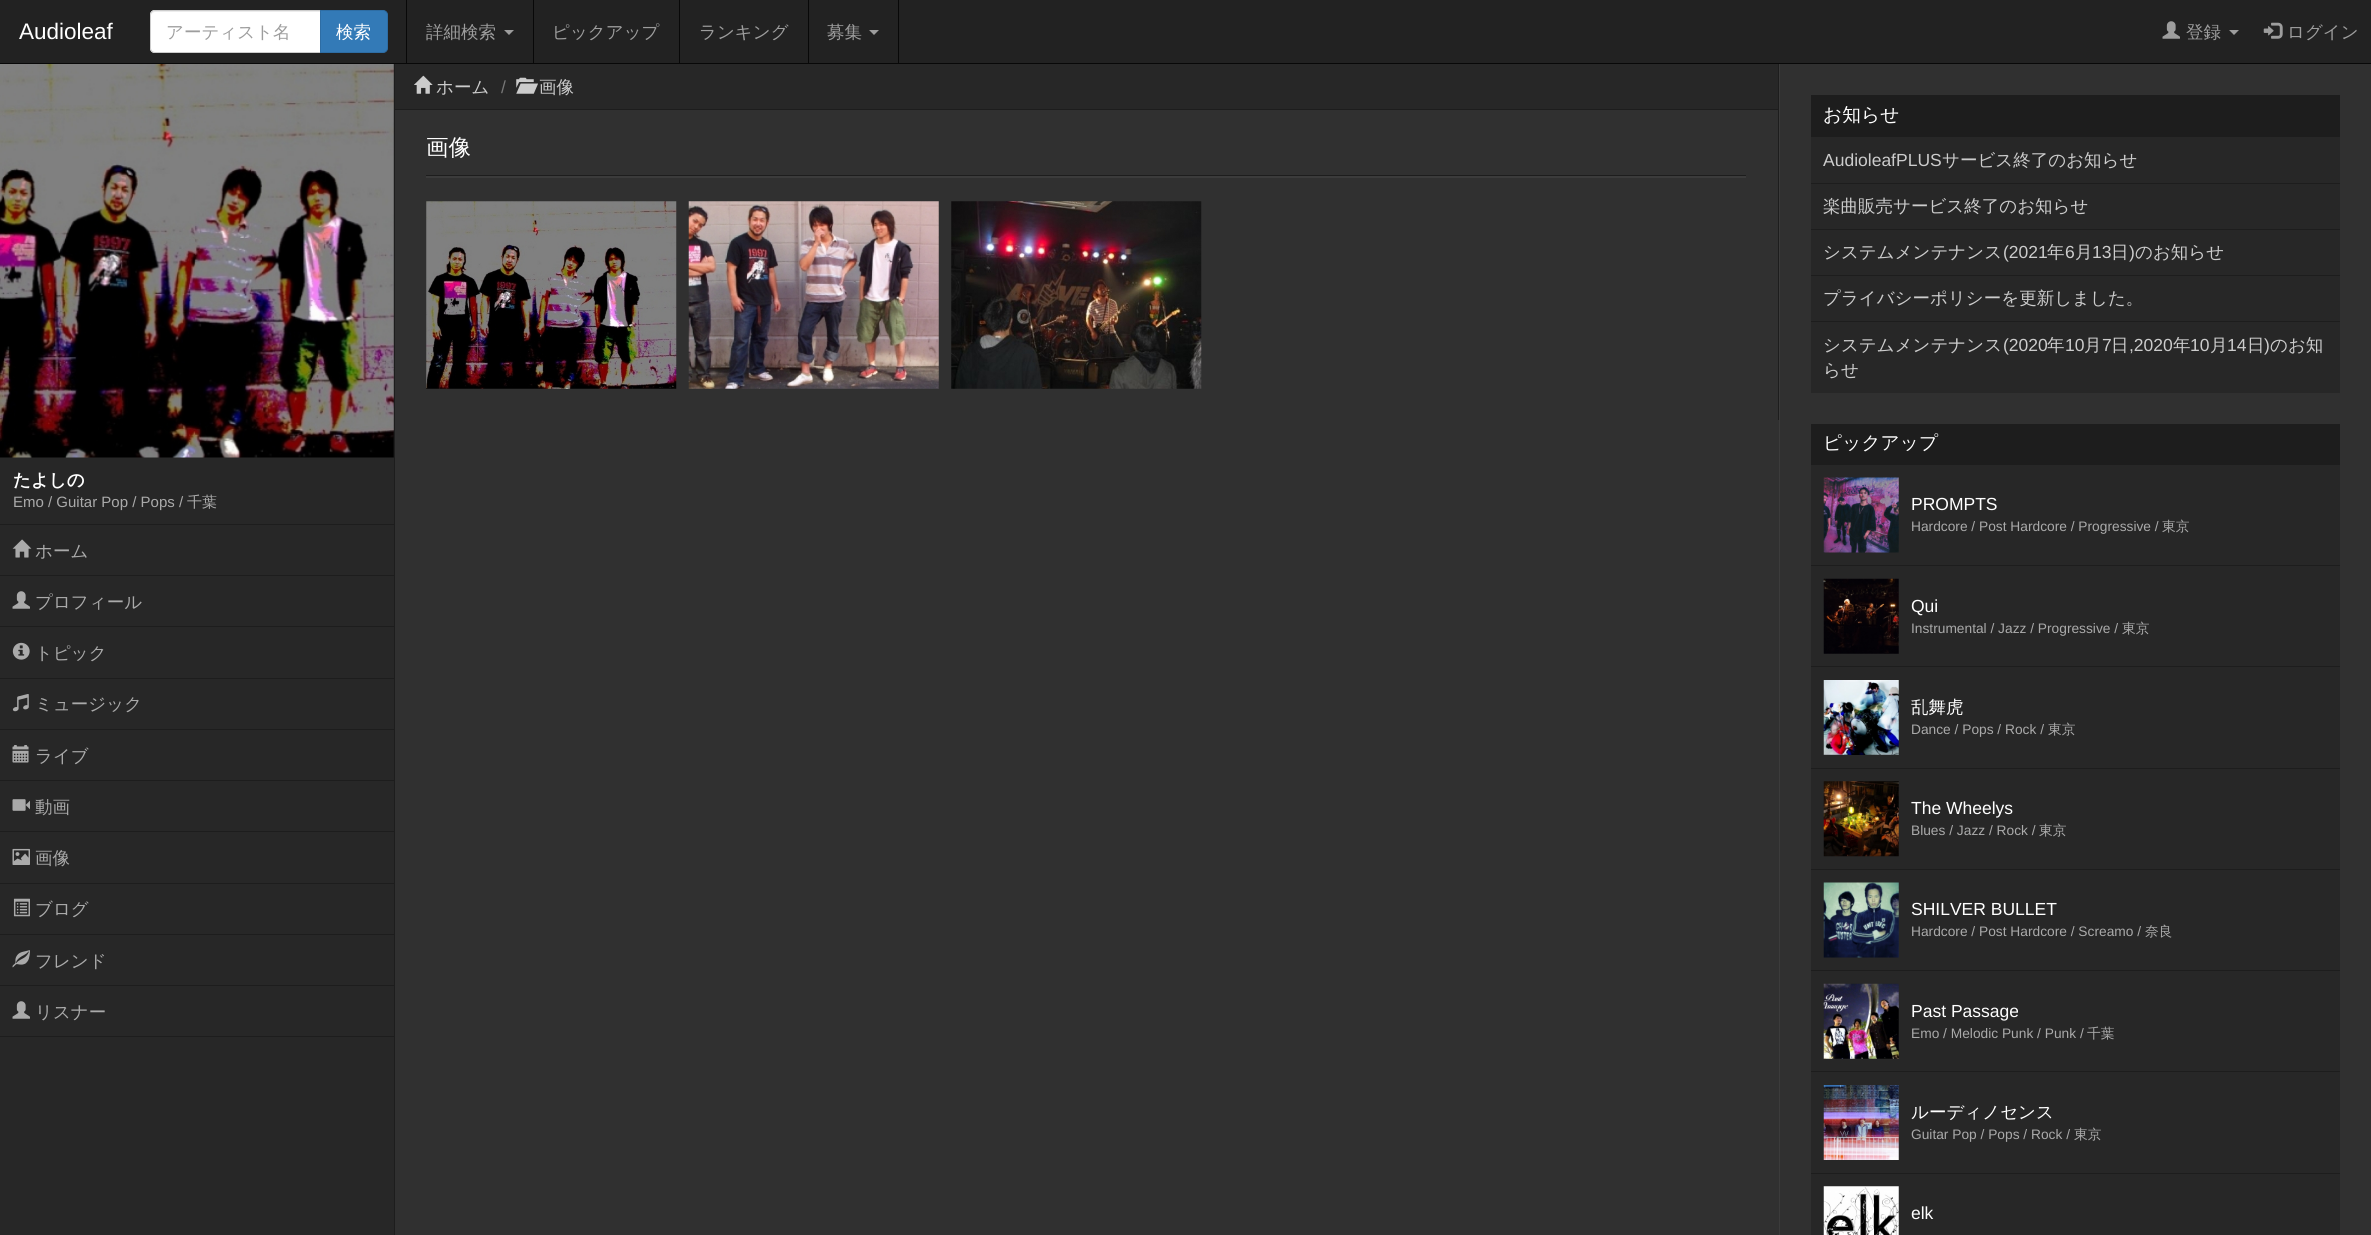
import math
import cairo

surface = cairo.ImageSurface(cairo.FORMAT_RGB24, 2371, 1235)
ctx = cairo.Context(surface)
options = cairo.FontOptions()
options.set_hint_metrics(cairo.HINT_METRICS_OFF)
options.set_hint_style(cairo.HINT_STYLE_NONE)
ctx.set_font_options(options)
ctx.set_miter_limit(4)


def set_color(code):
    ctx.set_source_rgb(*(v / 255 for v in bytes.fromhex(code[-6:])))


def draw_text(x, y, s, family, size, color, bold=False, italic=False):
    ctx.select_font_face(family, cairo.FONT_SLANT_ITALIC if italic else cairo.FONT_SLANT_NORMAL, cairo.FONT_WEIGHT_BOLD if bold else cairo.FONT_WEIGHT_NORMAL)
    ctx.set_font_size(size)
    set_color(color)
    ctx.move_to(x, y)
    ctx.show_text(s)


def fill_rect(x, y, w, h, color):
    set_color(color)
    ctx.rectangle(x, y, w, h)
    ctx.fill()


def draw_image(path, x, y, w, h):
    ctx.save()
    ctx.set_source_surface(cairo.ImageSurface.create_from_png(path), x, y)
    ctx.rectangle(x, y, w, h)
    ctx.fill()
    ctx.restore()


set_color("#303030")
ctx.paint()
fill_rect(0, 0, 2371, 63, "#222222")
fill_rect(0, 63, 2371, 1, "#080808")
draw_text(19, 39, "Audioleaf", "Liberation Sans", 22.5, "#ffffff")
ctx.new_path()
ctx.move_to(155, 10)
ctx.line_to(321, 10)
ctx.line_to(321, 53)
ctx.line_to(155, 53)
ctx.curve_to(152, 53, 150, 51, 150, 48)
ctx.line_to(150, 15)
ctx.curve_to(150, 12, 152, 10, 155, 10)
ctx.close_path()
ctx.fill()
set_color("#ececec")
ctx.new_path()
ctx.move_to(155, 12)
ctx.line_to(320, 12)
ctx.line_to(320, 11)
ctx.line_to(154, 11)
ctx.curve_to(152, 12, 151, 14, 151, 16)
ctx.curve_to(151, 14, 153, 12, 155, 12)
ctx.close_path()
ctx.fill()
ctx.new_path()
ctx.move_to(155, 10.5)
ctx.line_to(320.5, 10.5)
ctx.line_to(320.5, 52.5)
ctx.line_to(155, 52.5)
ctx.curve_to(152.5, 52.5, 150.5, 50.5, 150.5, 48)
ctx.line_to(150.5, 15)
ctx.curve_to(150.5, 12.5, 152.5, 10.5, 155, 10.5)
ctx.close_path()
set_color("#cccccc")
ctx.set_line_width(1)
ctx.stroke()
draw_text(166, 38, "アーティスト名", "WenQuanYi Zen Hei Medium", 17.5, "#9d9d9d")
set_color("#337ab7")
ctx.new_path()
ctx.move_to(320.5, 10.5)
ctx.line_to(383, 10.5)
ctx.curve_to(385.5, 10.5, 387.5, 12.5, 387.5, 15)
ctx.line_to(387.5, 48)
ctx.curve_to(387.5, 50.5, 385.5, 52.5, 383, 52.5)
ctx.line_to(320.5, 52.5)
ctx.close_path()
ctx.fill_preserve()
set_color("#2e6da4")
ctx.stroke()
draw_text(336, 38, "検索", "WenQuanYi Zen Hei Medium", 17.5, "#ffffff")
fill_rect(406, 0, 1, 63, "#080808")
fill_rect(533, 0, 1, 63, "#080808")
draw_text(426, 38, "詳細検索", "WenQuanYi Zen Hei Medium", 17.5, "#9d9d9d")
ctx.new_path()
ctx.move_to(504, 30)
ctx.line_to(514, 30)
ctx.line_to(509, 35)
ctx.close_path()
ctx.fill()
fill_rect(679, 0, 1, 63, "#080808")
draw_text(552, 38, "ピックアップ", "WenQuanYi Zen Hei Medium", 17.5, "#9d9d9d")
fill_rect(808, 0, 1, 63, "#080808")
draw_text(699, 38, "ランキング", "WenQuanYi Zen Hei Medium", 17.5, "#9d9d9d")
fill_rect(898, 0, 1, 63, "#080808")
draw_text(827, 38, "募集", "WenQuanYi Zen Hei Medium", 17.5, "#9d9d9d")
ctx.new_path()
ctx.move_to(869, 30)
ctx.line_to(879, 30)
ctx.line_to(874, 35)
ctx.close_path()
ctx.fill()
draw_image("assets/img1.png", 2162, 21, 18, 18)
draw_text(2186, 38, "登録", "WenQuanYi Zen Hei Medium", 17.5, "#9d9d9d")
ctx.new_path()
ctx.move_to(2229, 30)
ctx.line_to(2239, 30)
ctx.line_to(2234, 35)
ctx.close_path()
ctx.fill()
draw_image("assets/img2.png", 2263, 22, 20, 17)
draw_text(2287, 38, "ログイン", "WenQuanYi Zen Hei Medium", 17.5, "#9d9d9d")
fill_rect(0, 64, 394, 1171, "#272727")
fill_rect(394, 64, 1, 1171, "#1d1d1d")
fill_rect(0, 524, 394, 1, "#1d1d1d")
draw_image("assets/img3.png", 0, 64, 394, 394)
draw_text(13, 486, "たよしの", "WenQuanYi Zen Hei", 17.5, "#ffffff", bold=True)
draw_text(13, 507, "Emo / Guitar Pop / Pops /", "Liberation Sans", 15, "#aaaaaa")
draw_text(187, 507, "千葉", "WenQuanYi Zen Hei Medium", 15, "#aaaaaa")
fill_rect(0, 575, 394, 1, "#1d1d1d")
draw_image("assets/img4.png", 12, 539, 20, 19)
draw_text(35, 557, "ホーム", "WenQuanYi Zen Hei Medium", 17.5, "#aaaaaa")
fill_rect(0, 626, 394, 1, "#1d1d1d")
draw_image("assets/img5.png", 12, 591, 18, 18)
draw_text(35, 608, "プロフィール", "WenQuanYi Zen Hei Medium", 17.5, "#aaaaaa")
fill_rect(0, 678, 394, 1, "#1d1d1d")
draw_image("assets/img6.png", 12, 642, 18, 18)
draw_text(35, 659, "トピック", "WenQuanYi Zen Hei Medium", 17.5, "#aaaaaa")
fill_rect(0, 729, 394, 1, "#1d1d1d")
draw_image("assets/img7.png", 12, 694, 17, 18)
draw_text(35, 710, "ミュージック", "WenQuanYi Zen Hei Medium", 17.5, "#aaaaaa")
fill_rect(0, 780, 394, 1, "#1d1d1d")
draw_image("assets/img8.png", 12, 745, 17, 18)
draw_text(35, 762, "ライブ", "WenQuanYi Zen Hei Medium", 17.5, "#aaaaaa")
fill_rect(0, 831, 394, 1, "#1d1d1d")
draw_image("assets/img9.png", 12, 799, 18, 12)
draw_text(35, 813, "動画", "WenQuanYi Zen Hei Medium", 17.5, "#aaaaaa")
fill_rect(0, 883, 394, 1, "#1d1d1d")
draw_image("assets/img10.png", 12, 848, 18, 17)
draw_text(35, 864, "画像", "WenQuanYi Zen Hei Medium", 17.5, "#aaaaaa")
fill_rect(0, 934, 394, 1, "#1d1d1d")
draw_image("assets/img11.png", 13, 898, 17, 19)
draw_text(35, 915, "ブログ", "WenQuanYi Zen Hei Medium", 17.5, "#aaaaaa")
fill_rect(0, 985, 394, 1, "#1d1d1d")
draw_image("assets/img12.png", 12, 950, 18, 18)
draw_text(35, 967, "フレンド", "WenQuanYi Zen Hei Medium", 17.5, "#aaaaaa")
fill_rect(0, 1036, 394, 1, "#1d1d1d")
draw_image("assets/img5.png", 12, 1001, 18, 18)
draw_text(35, 1018, "リスナー", "WenQuanYi Zen Hei Medium", 17.5, "#aaaaaa")
fill_rect(1778, 64, 1, 356, "#1d1d1d")
fill_rect(395, 64, 1383, 45, "#272727")
fill_rect(395, 109, 1383, 1, "#1d1d1d")
draw_image("assets/img13.png", 414, 75, 19, 19)
draw_text(436, 93, "ホーム", "WenQuanYi Zen Hei Medium", 17.5, "#cccccc")
draw_text(501, 93, "/", "Liberation Sans", 17.5, "#777777")
draw_image("assets/img14.png", 516, 77, 22, 17)
draw_text(539, 93, "画像", "WenQuanYi Zen Hei Medium", 17.5, "#cccccc")
set_color("#3b3b3b")
ctx.new_path()
ctx.move_to(426, 136)
ctx.line_to(426, 178)
ctx.line_to(1746, 178)
ctx.line_to(1746, 176)
ctx.line_to(426, 176)
ctx.close_path()
ctx.fill()
fill_rect(426, 175, 1320, 1, "#1d1d1d")
draw_text(426, 155, "画像", "WenQuanYi Zen Hei Medium", 22.5, "#ffffff")
draw_image("assets/img15.png", 426, 201, 251, 188)
draw_image("assets/img16.png", 688, 201, 251, 188)
draw_image("assets/img17.png", 951, 201, 251, 188)
fill_rect(1779, 64, 1, 1171, "#3b3b3b")
fill_rect(1811, 95, 529, 42, "#1d1d1d")
draw_text(1823, 121, "お知らせ", "WenQuanYi Zen Hei Medium", 18.75, "#ffffff")
fill_rect(1811, 137, 529, 46, "#272727")
draw_text(1823, 166, "AudioleafPLUS", "Liberation Sans", 17.5, "#cccccc")
draw_text(1942, 166, "サービス終了のお知らせ", "WenQuanYi Zen Hei Medium", 17.5, "#cccccc")
fill_rect(1811, 184, 529, 45, "#272727")
fill_rect(1811, 183, 529, 1, "#1d1d1d")
draw_text(1823, 212, "楽曲販売サービス終了のお知らせ", "WenQuanYi Zen Hei Medium", 17.5, "#cccccc")
fill_rect(1811, 230, 529, 45, "#272727")
fill_rect(1811, 229, 529, 1, "#1d1d1d")
draw_text(1823, 258, "システムメンテナンス", "WenQuanYi Zen Hei Medium", 17.5, "#cccccc")
draw_text(2003, 258, "(2021", "Liberation Sans", 17.5, "#cccccc")
draw_text(2047, 258, "年", "WenQuanYi Zen Hei Medium", 17.5, "#cccccc")
draw_text(2065, 258, "6", "Liberation Sans", 17.5, "#cccccc")
draw_text(2075, 258, "月", "WenQuanYi Zen Hei Medium", 17.5, "#cccccc")
draw_text(2092, 258, "13", "Liberation Sans", 17.5, "#cccccc")
draw_text(2111, 258, "日", "WenQuanYi Zen Hei Medium", 17.5, "#cccccc")
draw_text(2129, 258, ")", "Liberation Sans", 17.5, "#cccccc")
draw_text(2135, 258, "のお知らせ", "WenQuanYi Zen Hei Medium", 17.5, "#cccccc")
fill_rect(1811, 276, 529, 45, "#272727")
fill_rect(1811, 275, 529, 1, "#1d1d1d")
draw_text(1823, 304, "プライバシーポリシーを更新しました。", "WenQuanYi Zen Hei Medium", 17.5, "#cccccc")
fill_rect(1811, 322, 529, 71, "#272727")
fill_rect(1811, 321, 529, 1, "#1d1d1d")
draw_text(1823, 351, "システムメンテナンス", "WenQuanYi Zen Hei Medium", 17.5, "#cccccc")
draw_text(2003, 351, "(2020", "Liberation Sans", 17.5, "#cccccc")
draw_text(2047, 351, "年", "WenQuanYi Zen Hei Medium", 17.5, "#cccccc")
draw_text(2065, 351, "10", "Liberation Sans", 17.5, "#cccccc")
draw_text(2084, 351, "月", "WenQuanYi Zen Hei Medium", 17.5, "#cccccc")
draw_text(2102, 351, "7", "Liberation Sans", 17.5, "#cccccc")
draw_text(2111, 351, "日", "WenQuanYi Zen Hei Medium", 17.5, "#cccccc")
draw_text(2129, 351, ",2020", "Liberation Sans", 17.5, "#cccccc")
draw_text(2173, 351, "年", "WenQuanYi Zen Hei Medium", 17.5, "#cccccc")
draw_text(2190, 351, "10", "Liberation Sans", 17.5, "#cccccc")
draw_text(2210, 351, "月", "WenQuanYi Zen Hei Medium", 17.5, "#cccccc")
draw_text(2227, 351, "14", "Liberation Sans", 17.5, "#cccccc")
draw_text(2247, 351, "日", "WenQuanYi Zen Hei Medium", 17.5, "#cccccc")
draw_text(2264, 351, ")", "Liberation Sans", 17.5, "#cccccc")
draw_text(2270, 351, "のお知", "WenQuanYi Zen Hei Medium", 17.5, "#cccccc")
draw_text(1823, 376, "らせ", "WenQuanYi Zen Hei Medium", 17.5, "#cccccc")
fill_rect(1811, 424, 529, 41, "#1d1d1d")
draw_text(1823, 449, "ピックアップ", "WenQuanYi Zen Hei Medium", 18.75, "#ffffff")
fill_rect(1811, 465, 529, 100, "#272727")
draw_image("assets/img18.png", 1823, 477, 76, 76)
draw_text(1911, 510, "PROMPTS", "Liberation Sans", 17.5, "#ffffff")
draw_text(1911, 531, "Hardcore / Post Hardcore / Progressive /", "Liberation Sans", 13.75, "#aaaaaa")
draw_text(2162, 531, "東京", "WenQuanYi Zen Hei Medium", 13.75, "#aaaaaa")
fill_rect(1811, 566, 529, 100, "#272727")
fill_rect(1811, 565, 529, 1, "#1d1d1d")
draw_image("assets/img19.png", 1823, 578, 76, 76)
draw_text(1911, 612, "Qui", "Liberation Sans", 17.5, "#ffffff")
draw_text(1911, 633, "Instrumental / Jazz / Progressive /", "Liberation Sans", 13.75, "#aaaaaa")
draw_text(2122, 633, "東京", "WenQuanYi Zen Hei Medium", 13.75, "#aaaaaa")
fill_rect(1811, 667, 529, 101, "#272727")
fill_rect(1811, 666, 529, 1, "#1d1d1d")
draw_image("assets/img20.png", 1823, 680, 76, 75)
draw_text(1911, 713, "乱舞虎", "WenQuanYi Zen Hei Medium", 17.5, "#ffffff")
draw_text(1911, 734, "Dance / Pops / Rock /", "Liberation Sans", 13.75, "#aaaaaa")
draw_text(2048, 734, "東京", "WenQuanYi Zen Hei Medium", 13.75, "#aaaaaa")
fill_rect(1811, 769, 529, 100, "#272727")
fill_rect(1811, 768, 529, 1, "#1d1d1d")
draw_image("assets/img21.png", 1823, 781, 76, 76)
draw_text(1911, 814, "The Wheelys", "Liberation Sans", 17.5, "#ffffff")
draw_text(1911, 835, "Blues / Jazz / Rock /", "Liberation Sans", 13.75, "#aaaaaa")
draw_text(2039, 835, "東京", "WenQuanYi Zen Hei Medium", 13.75, "#aaaaaa")
fill_rect(1811, 870, 529, 100, "#272727")
fill_rect(1811, 869, 529, 1, "#1d1d1d")
draw_image("assets/img22.png", 1823, 882, 76, 76)
draw_text(1911, 915, "SHILVER BULLET", "Liberation Sans", 17.5, "#ffffff")
draw_text(1911, 936, "Hardcore / Post Hardcore / Screamo /", "Liberation Sans", 13.75, "#aaaaaa")
draw_text(2145, 936, "奈良", "WenQuanYi Zen Hei Medium", 13.75, "#aaaaaa")
fill_rect(1811, 971, 529, 100, "#272727")
fill_rect(1811, 970, 529, 1, "#1d1d1d")
draw_image("assets/img23.png", 1823, 983, 76, 76)
draw_text(1911, 1017, "Past Passage", "Liberation Sans", 17.5, "#ffffff")
draw_text(1911, 1038, "Emo / Melodic Punk / Punk /", "Liberation Sans", 13.75, "#aaaaaa")
draw_text(2087, 1038, "千葉", "WenQuanYi Zen Hei Medium", 13.75, "#aaaaaa")
fill_rect(1811, 1072, 529, 101, "#272727")
fill_rect(1811, 1071, 529, 1, "#1d1d1d")
draw_image("assets/img24.png", 1823, 1085, 76, 75)
draw_text(1911, 1118, "ルーディノセンス", "WenQuanYi Zen Hei Medium", 17.5, "#ffffff")
draw_text(1911, 1139, "Guitar Pop / Pops / Rock /", "Liberation Sans", 13.75, "#aaaaaa")
draw_text(2074, 1139, "東京", "WenQuanYi Zen Hei Medium", 13.75, "#aaaaaa")
fill_rect(1811, 1174, 529, 61, "#272727")
fill_rect(1811, 1173, 529, 1, "#1d1d1d")
draw_image("assets/img25.png", 1823, 1186, 76, 49)
draw_text(1911, 1219, "elk", "Liberation Sans", 17.5, "#ffffff")
surface.write_to_png("output.png")
